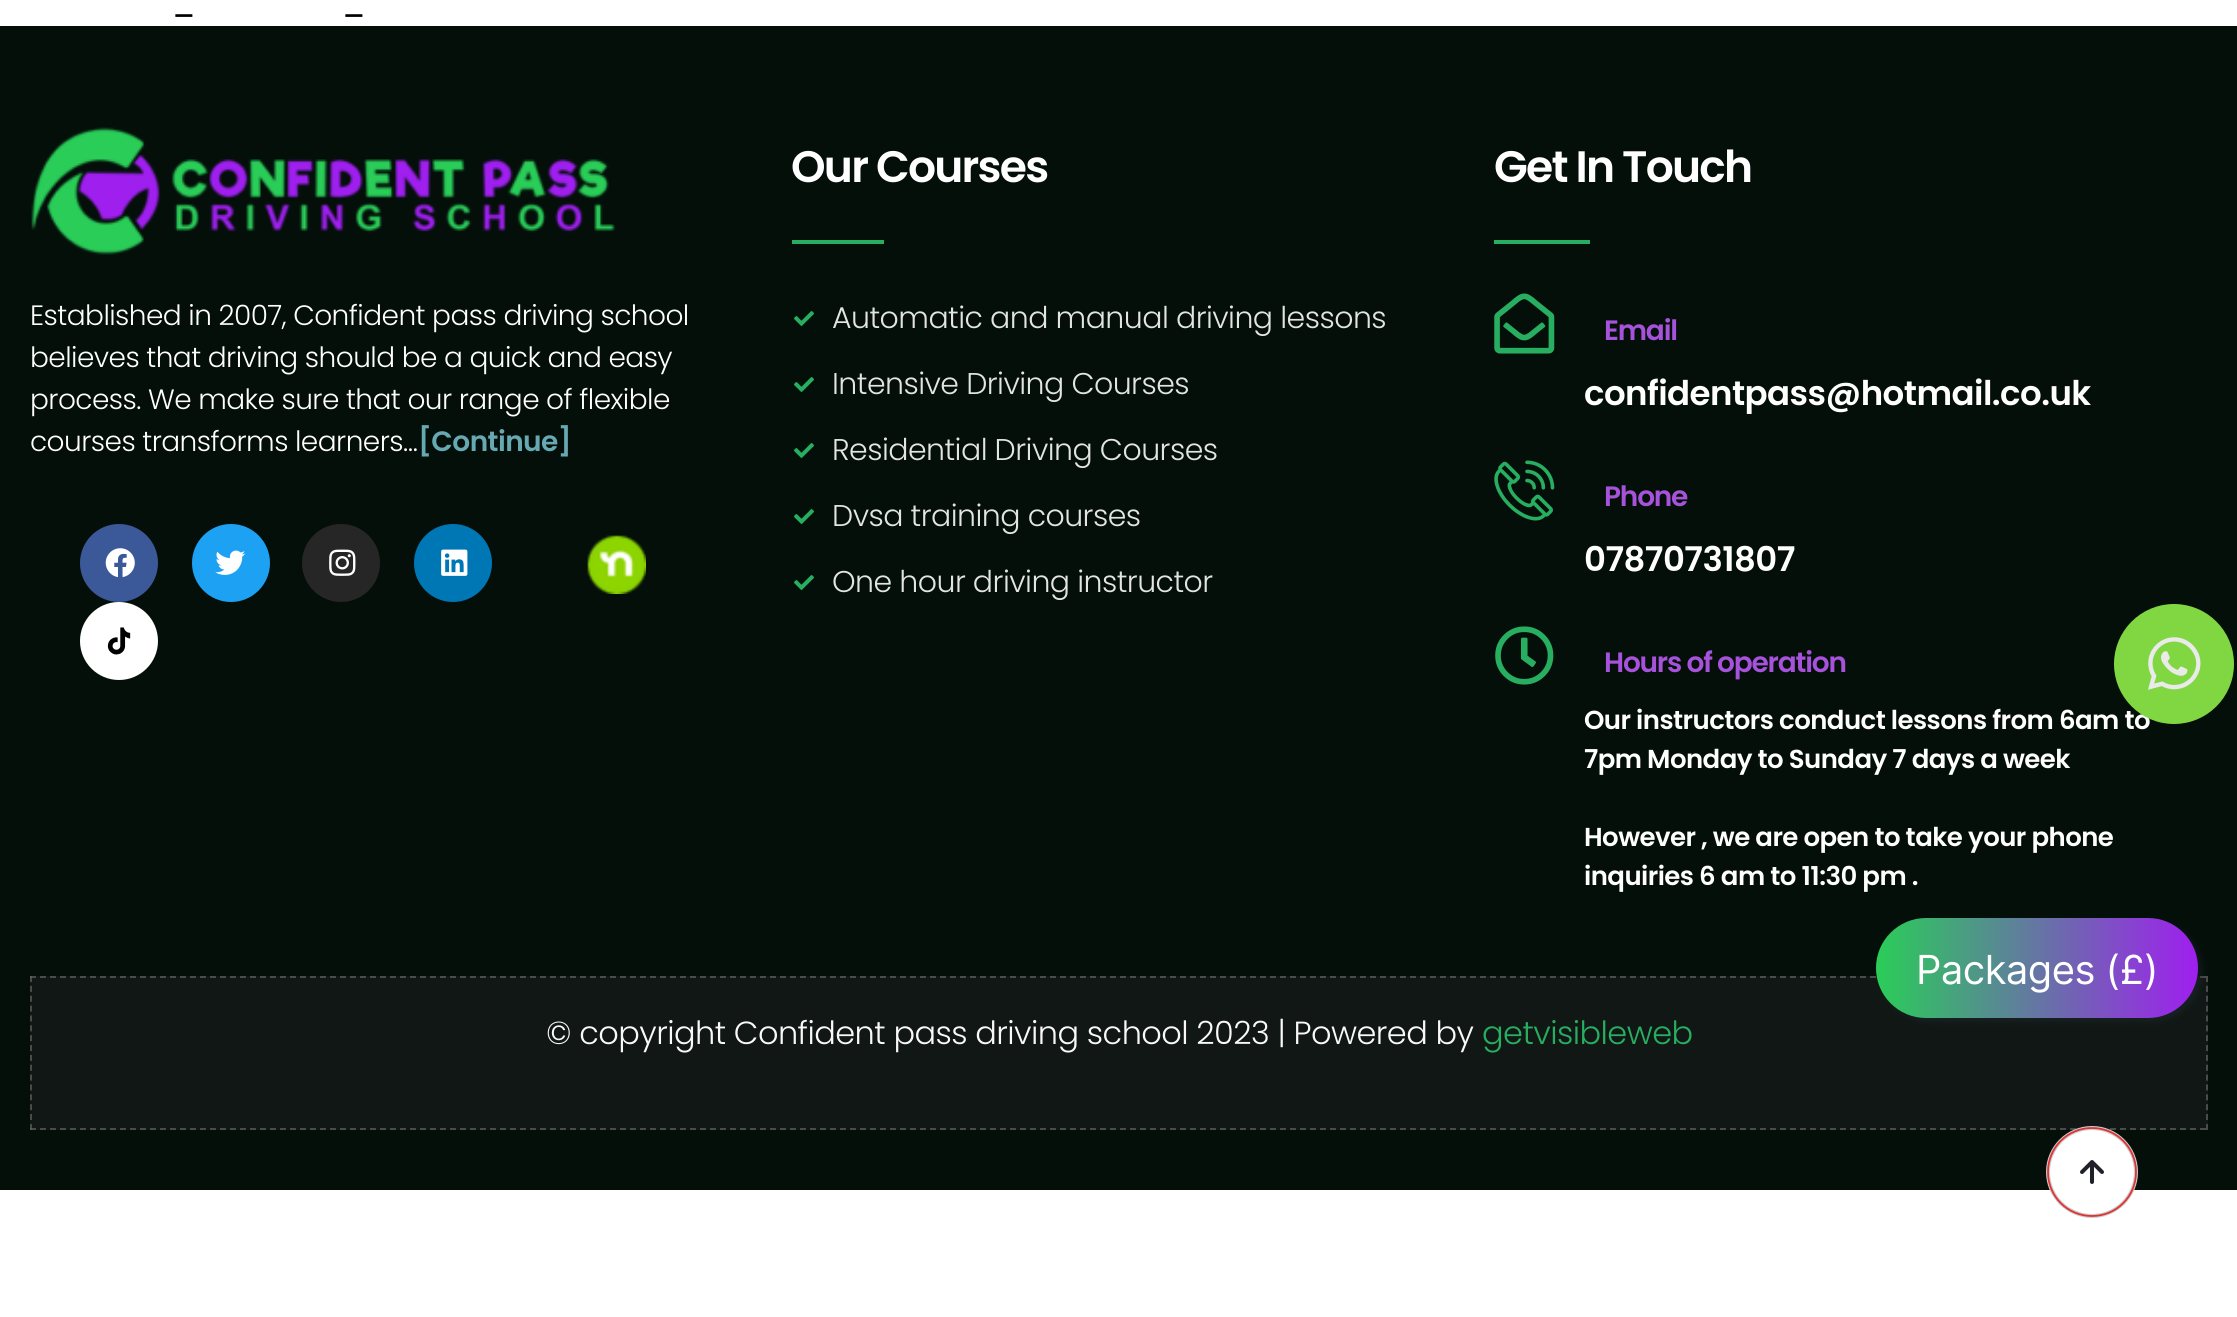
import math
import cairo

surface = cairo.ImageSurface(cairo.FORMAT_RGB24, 2237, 1317)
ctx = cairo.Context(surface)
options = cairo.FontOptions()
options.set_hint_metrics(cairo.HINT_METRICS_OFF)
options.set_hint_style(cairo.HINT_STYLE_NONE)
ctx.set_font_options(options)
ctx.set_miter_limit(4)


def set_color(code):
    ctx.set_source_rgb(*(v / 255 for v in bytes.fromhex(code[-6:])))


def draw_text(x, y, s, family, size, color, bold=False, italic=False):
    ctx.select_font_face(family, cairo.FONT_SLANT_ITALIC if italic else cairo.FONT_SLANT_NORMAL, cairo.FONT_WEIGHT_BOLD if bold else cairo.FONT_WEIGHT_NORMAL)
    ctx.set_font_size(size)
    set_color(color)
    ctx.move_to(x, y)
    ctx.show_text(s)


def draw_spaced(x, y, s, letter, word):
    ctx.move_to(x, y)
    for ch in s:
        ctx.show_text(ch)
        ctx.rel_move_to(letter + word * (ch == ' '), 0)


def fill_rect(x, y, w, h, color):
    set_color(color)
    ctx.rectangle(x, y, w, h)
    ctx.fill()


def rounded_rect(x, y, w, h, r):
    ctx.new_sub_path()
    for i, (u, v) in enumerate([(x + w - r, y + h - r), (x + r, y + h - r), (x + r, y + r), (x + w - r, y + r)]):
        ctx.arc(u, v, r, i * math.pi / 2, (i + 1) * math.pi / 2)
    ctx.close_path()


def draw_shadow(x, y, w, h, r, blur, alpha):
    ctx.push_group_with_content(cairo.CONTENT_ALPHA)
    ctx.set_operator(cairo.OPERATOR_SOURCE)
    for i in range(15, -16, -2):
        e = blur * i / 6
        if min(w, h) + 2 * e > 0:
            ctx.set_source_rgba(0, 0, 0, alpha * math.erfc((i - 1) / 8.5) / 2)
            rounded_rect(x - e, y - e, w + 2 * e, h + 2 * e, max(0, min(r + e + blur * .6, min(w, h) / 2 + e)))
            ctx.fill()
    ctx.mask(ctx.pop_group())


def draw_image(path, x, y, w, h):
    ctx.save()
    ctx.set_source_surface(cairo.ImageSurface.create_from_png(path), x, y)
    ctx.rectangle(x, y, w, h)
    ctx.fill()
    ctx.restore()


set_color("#ffffff")
ctx.paint()
draw_text(172, 13, "_", "Poppins", 32, "#000000")
draw_text(342, 13, "_", "Poppins", 32, "#000000")
fill_rect(0, 26, 2237, 1164, "#040f0a")
draw_image("assets/img1.png", 31, 127, 584, 128)
ctx.select_font_face("Poppins Light")
ctx.set_font_size(28)
set_color("#ffffff")
draw_spaced(30, 325, "Established in 2007, Confident pass driving school", -0.55, 0)
draw_spaced(30, 367, "believes that driving should be a quick and easy", -0.55, 0)
draw_spaced(30, 409, "process. We make sure that our range of flexible", -0.55, 0)
draw_spaced(30, 451, "courses transforms learners…", -0.55, 0)
ctx.select_font_face("Poppins SemiBold")
set_color("#67a9b2")
draw_spaced(418, 451, "[Continue]", -0.55, 0)
set_color("#3b5998")
ctx.new_path()
ctx.arc(119, 563, 39, 0, 2 * math.pi)
ctx.fill()
draw_image("assets/img2.png", 105, 548, 30, 30)
set_color("#1da1f2")
ctx.arc(231, 563, 39, 0, 2 * math.pi)
ctx.fill()
draw_image("assets/img3.png", 215, 550, 31, 25)
set_color("#262626")
ctx.arc(341, 563, 39, 0, 2 * math.pi)
ctx.fill()
draw_image("assets/img4.png", 329, 549, 27, 27)
set_color("#0077b5")
ctx.arc(453, 563, 39, 0, 2 * math.pi)
ctx.fill()
draw_image("assets/img5.png", 441, 549, 27, 27)
set_color("#ffffff")
ctx.arc(119, 641, 39, 0, 2 * math.pi)
ctx.fill()
draw_image("assets/img6.png", 107, 627, 24, 28)
draw_image("assets/img7.png", 587, 535, 59, 59)
ctx.set_font_size(44)
draw_spaced(791, 182, "Our Courses", -1.75, 0)
fill_rect(792, 240, 92, 4, "#27ae60")
draw_image("assets/img8.png", 794, 311, 20, 15)
ctx.select_font_face("Poppins Light")
ctx.set_font_size(30)
set_color("#e3e5e4")
draw_spaced(832, 328, "Automatic and manual driving lessons", -0.55, 0)
draw_image("assets/img8.png", 794, 377, 20, 15)
draw_spaced(832, 394, "Intensive Driving Courses", -0.55, 0)
draw_image("assets/img8.png", 794, 443, 20, 15)
draw_spaced(832, 460, "Residential Driving Courses", -0.55, 0)
draw_image("assets/img8.png", 794, 509, 20, 15)
draw_spaced(832, 526, "Dvsa training courses", -0.55, 0)
draw_image("assets/img8.png", 794, 575, 20, 15)
draw_spaced(832, 592, "One hour driving instructor", -0.55, 0)
ctx.select_font_face("Poppins SemiBold")
ctx.set_font_size(44)
set_color("#ffffff")
draw_spaced(1494, 182, "Get In Touch", -1.75, 0)
fill_rect(1494, 240, 96, 4, "#27ae60")
draw_image("assets/img9.png", 1494, 293, 61, 61)
ctx.set_font_size(28)
set_color("#a652db")
draw_spaced(1604, 340, "Email", -1.2, 0)
ctx.set_font_size(34)
set_color("#ffffff")
draw_spaced(1584, 405, "confidentpass@hotmail.co.uk", -0.55, 0)
draw_image("assets/img10.png", 1494, 460, 61, 61)
ctx.set_font_size(28)
set_color("#a652db")
draw_spaced(1604, 506, "Phone", -1.2, 0)
ctx.set_font_size(34)
set_color("#ffffff")
draw_spaced(1584, 571, "07870731807", -0.55, 0)
draw_image("assets/img11.png", 1495, 626, 59, 59)
ctx.set_font_size(28)
set_color("#a652db")
draw_spaced(1604, 672, "Hours of operation", -1.2, 0)
ctx.set_font_size(26)
set_color("#ffffff")
draw_spaced(1584, 729, "Our instructors conduct lessons from 6am to", -0.55, 0)
draw_spaced(1584, 768, "7pm Monday to Sunday 7 days a week", -0.55, 0)
draw_spaced(1584, 846, "However , we are open to take your phone", -0.55, 0)
draw_spaced(1584, 885, "inquiries 6 am to 11:30 pm .", -0.55, 0)
fill_rect(30, 976, 2178, 154, "#101714")
ctx.new_path()
ctx.move_to(30, 977)
ctx.line_to(2208, 977)
set_color("#4a4c4b")
ctx.set_dash([6, 4])
ctx.stroke()
ctx.new_path()
ctx.move_to(2207, 976)
ctx.line_to(2207, 1130)
ctx.set_dash([6, 3.86])
ctx.stroke()
ctx.new_path()
ctx.move_to(30, 1129)
ctx.line_to(2208, 1129)
ctx.set_dash([6, 4])
ctx.stroke()
ctx.new_path()
ctx.move_to(31, 976)
ctx.line_to(31, 1130)
ctx.set_source_rgba(0.388, 0.388, 0.388, 0.7)
ctx.set_dash([6, 3.86])
ctx.stroke()
set_color("#212b36")
draw_shadow(1880, 922, 322, 100, 50, 3, 0.4)
gradient = cairo.LinearGradient(1876, 968, 2198, 968)
gradient.add_color_stop_rgba(0, 0.165, 0.804, 0.345, 1)
gradient.add_color_stop_rgba(1, 0.624, 0.122, 0.937, 1)
ctx.set_source(gradient)
rounded_rect(1876, 918, 322, 100, 50)
ctx.fill()
ctx.select_font_face("Inter")
ctx.set_font_size(40)
set_color("#ffffff")
draw_spaced(1916, 984, "Packages (£)", -0.55, 0)
ctx.select_font_face("Poppins Light")
ctx.set_font_size(32)
set_color("#f9f9f9")
draw_spaced(546, 1044, "© copyright Confident pass driving school 2023 | Powered by", -0.55, 0)
set_color("#27ae60")
draw_spaced(1482, 1044, "getvisibleweb", -0.55, 0)
set_color("#81d742")
ctx.new_path()
ctx.arc(2174, 664, 60, 0, 2 * math.pi)
ctx.fill()
draw_image("assets/img12.png", 2148, 637, 53, 53)
set_color("#ffffff")
ctx.arc(2092, 1172, 44, 0, 2 * math.pi)
ctx.fill_preserve()
set_color("#cccccc")
ctx.set_line_width(4)
ctx.set_dash([])
ctx.stroke()
ctx.new_path()
ctx.move_to(2092, 1128)
ctx.curve_to(2116.5, 1128, 2136, 1147.5, 2136, 1172)
ctx.curve_to(2136, 1196.5, 2116.5, 1216, 2092, 1216)
ctx.curve_to(2067.5, 1216, 2048, 1196.5, 2048, 1172)
ctx.curve_to(2048, 1147.5, 2067.5, 1128, 2092, 1128)
set_color("#dd3333")
ctx.set_line_width(1.8)
ctx.stroke()
draw_image("assets/img13.png", 2080, 1160, 24, 24)
surface.write_to_png("output.png")
